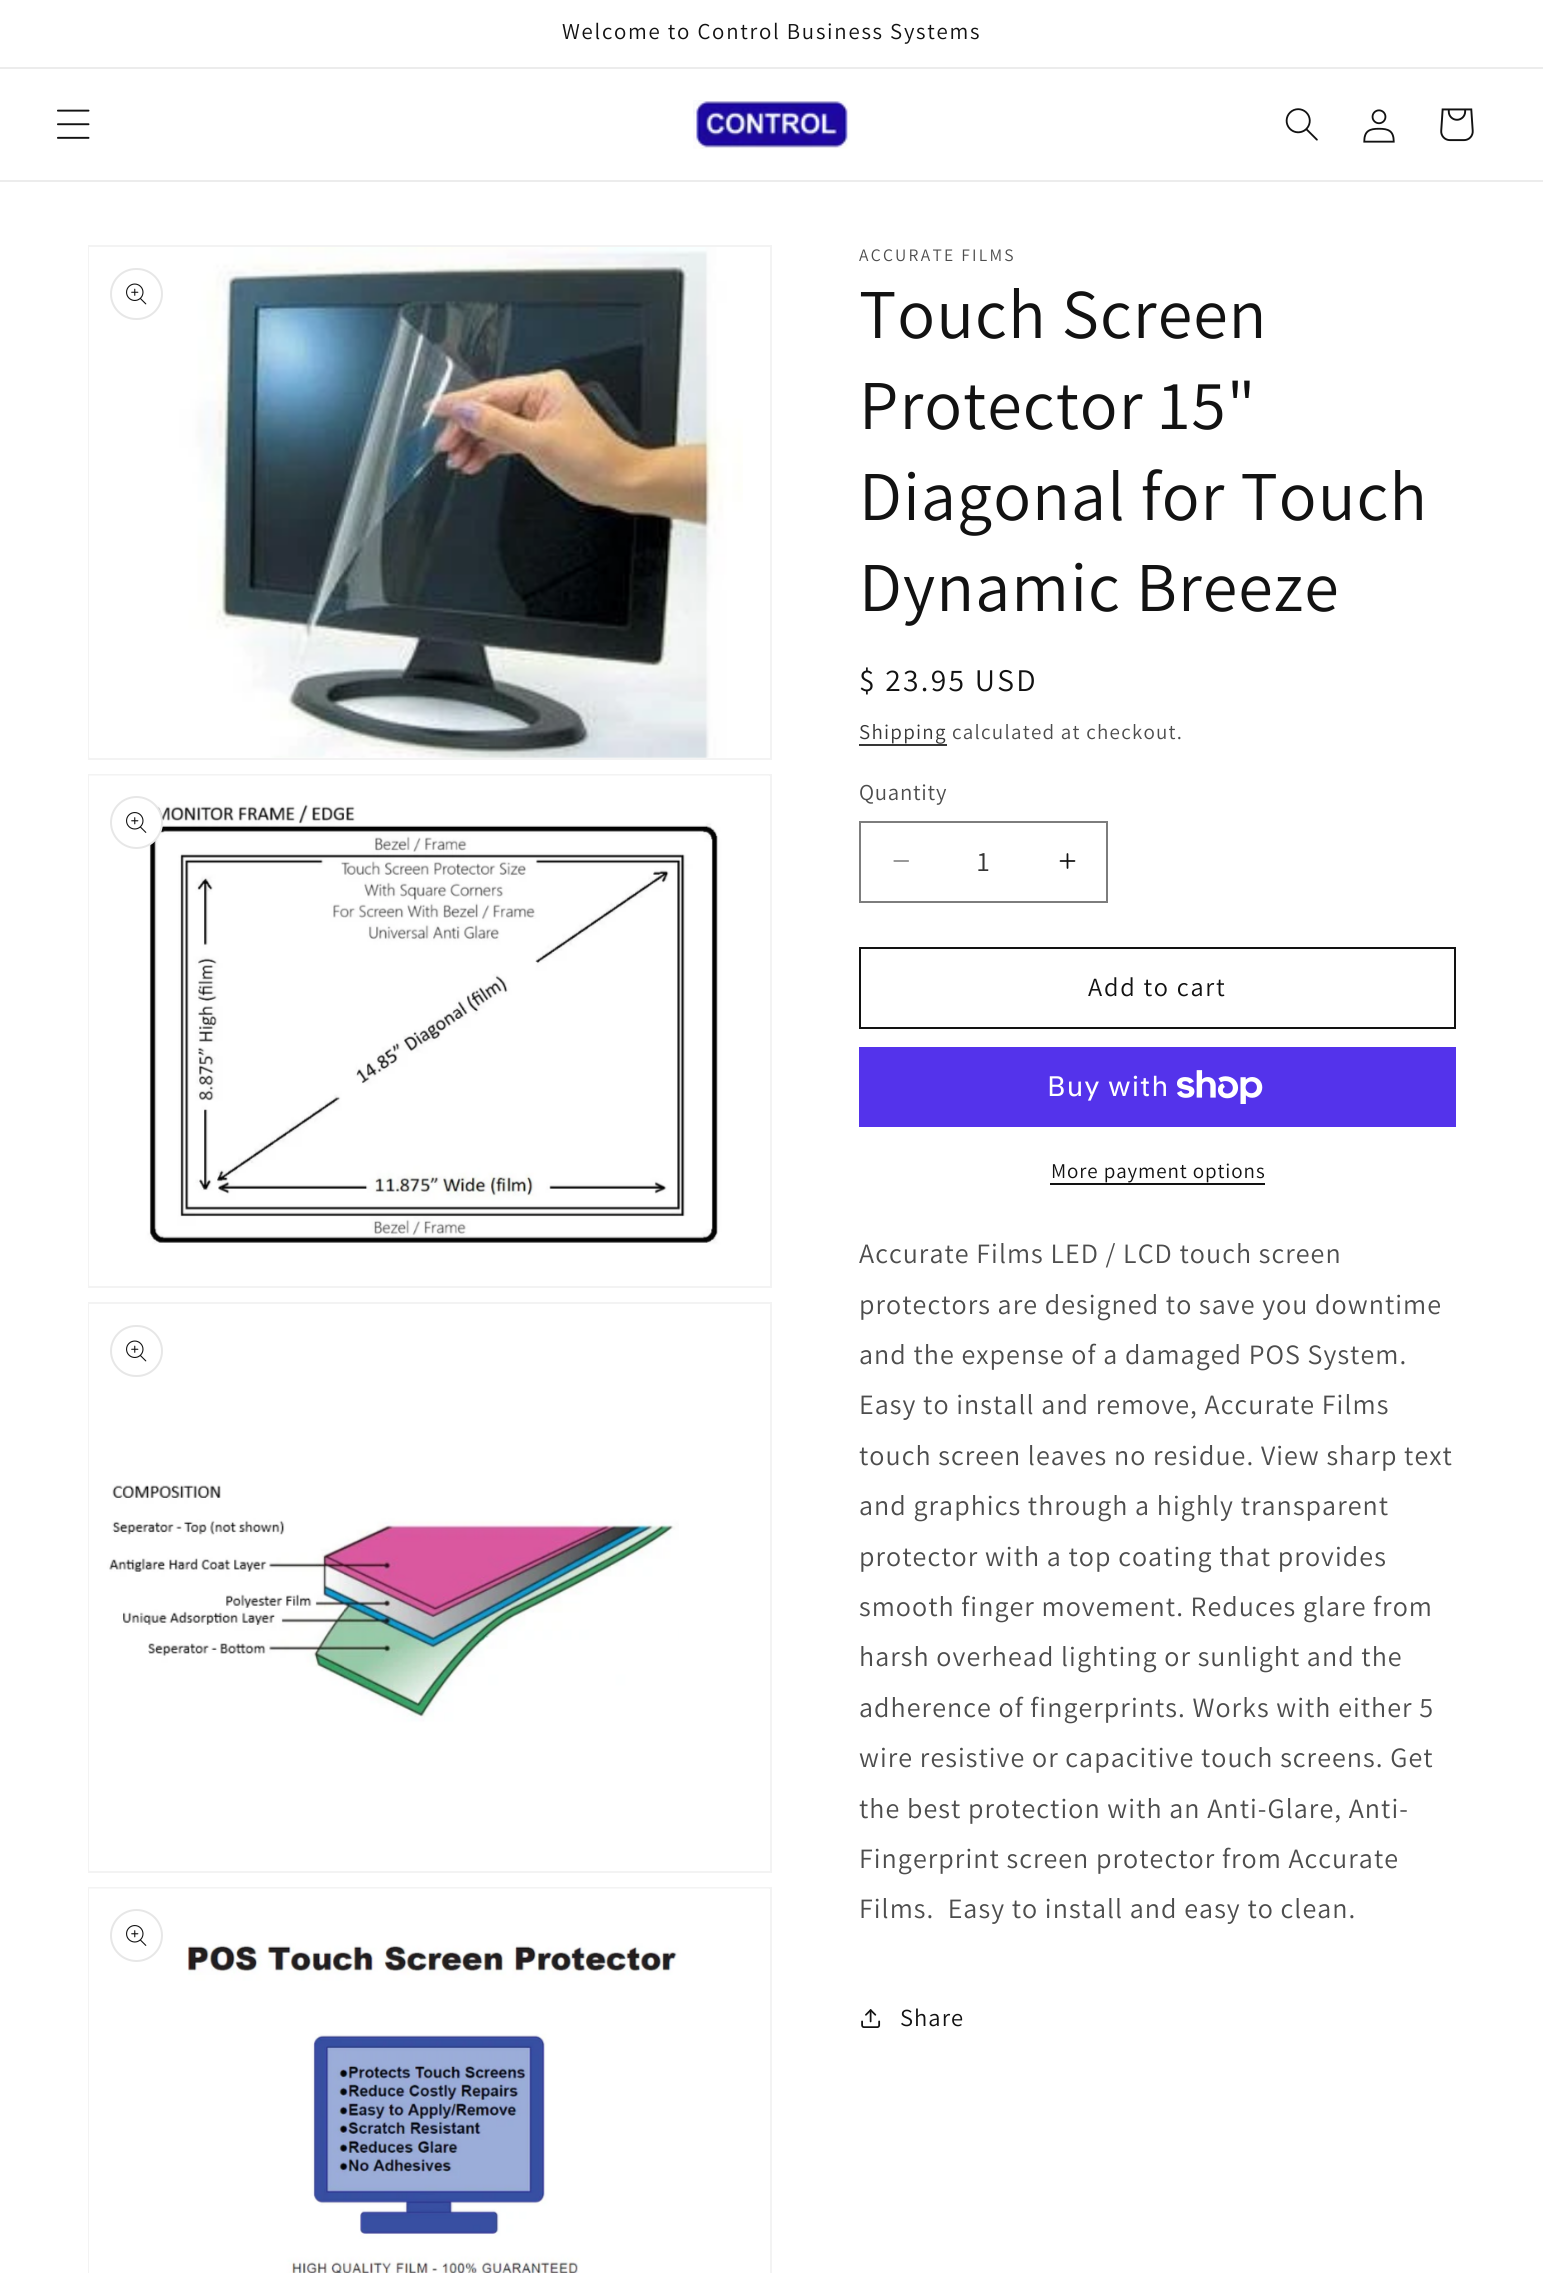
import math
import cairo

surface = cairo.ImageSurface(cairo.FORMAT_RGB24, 1543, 2273)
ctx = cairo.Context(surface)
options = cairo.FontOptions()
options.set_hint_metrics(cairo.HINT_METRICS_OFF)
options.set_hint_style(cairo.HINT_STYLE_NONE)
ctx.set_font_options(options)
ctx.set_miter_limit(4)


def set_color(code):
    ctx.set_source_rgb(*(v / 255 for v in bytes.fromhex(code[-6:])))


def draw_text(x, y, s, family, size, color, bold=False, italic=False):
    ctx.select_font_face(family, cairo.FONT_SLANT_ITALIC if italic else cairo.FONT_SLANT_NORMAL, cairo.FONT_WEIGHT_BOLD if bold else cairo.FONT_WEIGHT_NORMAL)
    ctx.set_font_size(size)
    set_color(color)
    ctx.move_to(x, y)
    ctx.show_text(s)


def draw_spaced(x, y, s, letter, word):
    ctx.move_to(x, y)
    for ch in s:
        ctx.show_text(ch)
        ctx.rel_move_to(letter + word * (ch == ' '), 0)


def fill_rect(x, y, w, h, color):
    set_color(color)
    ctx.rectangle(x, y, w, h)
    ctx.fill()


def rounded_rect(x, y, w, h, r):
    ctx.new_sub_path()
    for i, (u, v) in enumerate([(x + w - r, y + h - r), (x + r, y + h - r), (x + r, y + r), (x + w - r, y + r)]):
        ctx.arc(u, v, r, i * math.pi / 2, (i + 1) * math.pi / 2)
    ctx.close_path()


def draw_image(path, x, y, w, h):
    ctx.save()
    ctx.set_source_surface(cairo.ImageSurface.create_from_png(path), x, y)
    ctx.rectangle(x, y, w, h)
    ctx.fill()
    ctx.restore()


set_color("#ffffff")
ctx.paint()
fill_rect(0, 67, 1543, 2, "#ececec")
ctx.select_font_face("Assistant")
ctx.set_font_size(22.75)
set_color("#121212")
draw_spaced(562, 39, "Welcome to Control Business Systems", 1.75, 0)
fill_rect(0, 180, 1543, 2, "#ececec")
draw_image("assets/img1.png", 57, 109, 33, 30)
draw_image("assets/img2.png", 693, 100, 157, 49)
draw_image("assets/img3.png", 1285, 108, 33, 33)
draw_image("assets/img4.png", 1363, 109, 32, 34)
draw_image("assets/img5.png", 1440, 108, 34, 34)
ctx.rectangle(89, 246, 682, 513)
set_color("#f3f3f3")
ctx.stroke()
draw_image("assets/img6.png", 89, 247, 654, 511)
rounded_rect(111, 269, 51, 50, 25)
set_color("#e7e7e7")
ctx.stroke()
draw_image("assets/img7.png", 126, 283, 21, 22)
ctx.rectangle(89, 775, 682, 512)
set_color("#f3f3f3")
ctx.stroke()
draw_image("assets/img8.png", 89, 775, 680, 511)
set_color("#ffffff")
ctx.arc(136.5, 822.5, 26.5, 0, 2 * math.pi)
ctx.fill()
ctx.arc(136.5, 822.5, 25.5, 0, 2 * math.pi)
ctx.set_source_rgba(0.071, 0.071, 0.071, 0.1)
ctx.stroke()
draw_image("assets/img9.png", 126, 812, 21, 21)
ctx.rectangle(89, 1303, 682, 569)
set_color("#f3f3f3")
ctx.stroke()
draw_image("assets/img10.png", 89, 1304, 590, 567)
rounded_rect(111, 1326, 51, 50, 25)
set_color("#e7e7e7")
ctx.stroke()
draw_image("assets/img7.png", 126, 1340, 21, 22)
ctx.rectangle(89, 1888, 682, 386)
set_color("#f3f3f3")
ctx.stroke()
draw_image("assets/img11.png", 89, 1888, 680, 385)
ctx.arc(136.5, 1935.5, 25.5, 0, 2 * math.pi)
set_color("#e7e7e7")
ctx.stroke()
draw_image("assets/img9.png", 126, 1925, 21, 21)
ctx.set_font_size(17.5)
set_color("#4d4d4d")
draw_spaced(859, 261, "ACCURATE FILMS", 2.25, 0)
ctx.set_font_size(70)
set_color("#121212")
draw_spaced(859, 338, "Touch Screen", 1.05, 0)
draw_spaced(859, 429, "Protector 15\"", 1.05, 0)
draw_spaced(859, 520, "Diagonal for Touch", 1.05, 0)
draw_spaced(859, 611, "Dynamic Breeze", 1.05, 0)
ctx.set_font_size(31.5)
draw_spaced(859, 691, "$ 23.95 USD", 2.25, 0)
ctx.set_font_size(21)
set_color("#363636")
draw_spaced(859, 739, "Shipping", 1.25, 0)
fill_rect(859, 744, 88, 2, "#363636")
set_color("#4d4d4d")
draw_spaced(952, 739, "calculated at checkout.", 1.25, 0)
ctx.set_font_size(22.75)
draw_spaced(859, 800, "Quantity", 0.75, 0)
draw_image("assets/img12.png", 893, 860, 16, 2)
draw_image("assets/img13.png", 1059, 853, 17, 16)
ctx.rectangle(860, 822, 247, 80)
set_color("#7d7d7d")
ctx.stroke()
draw_text(977, 871, "1", "Assistant", 28, "#363636")
ctx.rectangle(860, 948, 595, 80)
set_color("#121212")
ctx.stroke()
ctx.set_font_size(26.25)
draw_spaced(1088, 996, "Add to cart", 1.75, 0)
fill_rect(859, 1047, 597, 80, "#5433eb")
ctx.select_font_face("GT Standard")
ctx.set_font_size(28)
set_color("#ffffff")
draw_spaced(1047, 1096, "Buy with", 1.05, 0)
draw_image("assets/img14.png", 1177, 1070, 86, 34)
ctx.select_font_face("Assistant")
ctx.set_font_size(21)
set_color("#121212")
draw_spaced(1051, 1178, "More payment options", 0.9, 0)
fill_rect(1050, 1183, 215, 2, "#121212")
ctx.set_font_size(28)
set_color("#4d4d4d")
draw_spaced(859, 1263, "Accurate Films LED / LCD touch screen", 1.05, 0)
draw_spaced(859, 1314, "protectors are designed to save you downtime", 1.05, 0)
draw_spaced(859, 1364, "and the expense of a damaged POS System.", 1.05, 0)
draw_spaced(859, 1414, "Easy to install and remove, Accurate Films", 1.05, 0)
draw_spaced(859, 1465, "touch screen leaves no residue. View sharp text", 1.05, 0)
draw_spaced(859, 1515, "and graphics through a highly transparent", 1.05, 0)
draw_spaced(859, 1566, "protector with a top coating that provides", 1.05, 0)
draw_spaced(859, 1616, "smooth finger movement. Reduces glare from", 1.05, 0)
draw_spaced(859, 1666, "harsh overhead lighting or sunlight and the", 1.05, 0)
draw_spaced(859, 1717, "adherence of fingerprints. Works with either 5", 1.05, 0)
draw_spaced(859, 1767, "wire resistive or capacitive touch screens. Get", 1.05, 0)
draw_spaced(859, 1818, "the best protection with an Anti-Glare, Anti-", 1.05, 0)
draw_spaced(859, 1868, "Fingerprint screen protector from Accurate", 1.05, 0)
draw_spaced(859, 1918, "Films.  Easy to install and easy to clean.", 1.05, 0)
draw_image("assets/img15.png", 861, 2009, 20, 19)
ctx.set_font_size(24.5)
set_color("#121212")
draw_spaced(900, 2026, "Share", 1.05, 0)
surface.write_to_png("output.png")
